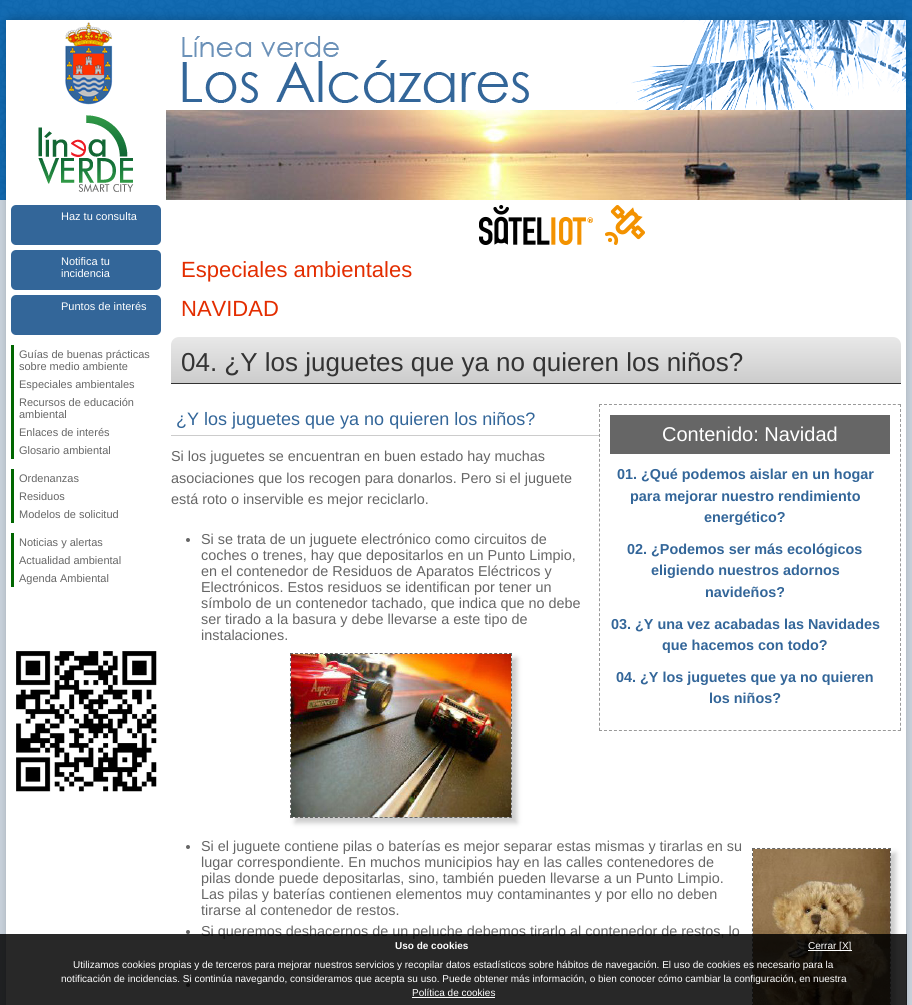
import math
import cairo

surface = cairo.ImageSurface(cairo.FORMAT_RGB24, 912, 1005)
ctx = cairo.Context(surface)
options = cairo.FontOptions()
options.set_hint_metrics(cairo.HINT_METRICS_OFF)
options.set_hint_style(cairo.HINT_STYLE_NONE)
ctx.set_font_options(options)
ctx.set_miter_limit(4)


def set_color(code):
    ctx.set_source_rgb(*(v / 255 for v in bytes.fromhex(code[-6:])))


def draw_text(x, y, s, family, size, color, bold=False, italic=False):
    ctx.select_font_face(family, cairo.FONT_SLANT_ITALIC if italic else cairo.FONT_SLANT_NORMAL, cairo.FONT_WEIGHT_BOLD if bold else cairo.FONT_WEIGHT_NORMAL)
    ctx.set_font_size(size)
    set_color(color)
    ctx.move_to(x, y)
    ctx.show_text(s)


def fill_rect(x, y, w, h, color):
    set_color(color)
    ctx.rectangle(x, y, w, h)
    ctx.fill()


def rounded_rect(x, y, w, h, r):
    ctx.new_sub_path()
    for i, (u, v) in enumerate([(x + w - r, y + h - r), (x + r, y + h - r), (x + r, y + r), (x + w - r, y + r)]):
        ctx.arc(u, v, r, i * math.pi / 2, (i + 1) * math.pi / 2)
    ctx.close_path()


def draw_shadow(x, y, w, h, r, blur, alpha):
    ctx.push_group_with_content(cairo.CONTENT_ALPHA)
    ctx.set_operator(cairo.OPERATOR_SOURCE)
    for i in range(15, -16, -2):
        e = blur * i / 6
        if min(w, h) + 2 * e > 0:
            ctx.set_source_rgba(0, 0, 0, alpha * math.erfc((i - 1) / 8.5) / 2)
            rounded_rect(x - e, y - e, w + 2 * e, h + 2 * e, max(0, min(r + e + blur * .6, min(w, h) / 2 + e)))
            ctx.fill()
    ctx.mask(ctx.pop_group())


def draw_image(path, x, y, w, h):
    ctx.save()
    ctx.set_source_surface(cairo.ImageSurface.create_from_png(path), x, y)
    ctx.rectangle(x, y, w, h)
    ctx.fill()
    ctx.restore()


set_color("#ccd6e0")
ctx.paint()
draw_image("assets/img1.png", 0, 0, 912, 200)
set_color("#000000")
draw_shadow(6, 18, 900, 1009, 7, 5, 0.2)
fill_rect(6, 110, 900, 895, "#ffffff")
draw_image("assets/img2.png", 6, 20, 900, 90)
draw_image("assets/img3.png", 38, 115, 96, 77)
draw_image("assets/img4.png", 166, 110, 740, 90)
draw_image("assets/img5.png", 479, 205, 166, 40)
set_color("#336699")
rounded_rect(11, 205, 150, 40, 5)
ctx.fill()
draw_text(61, 220, "Haz tu consulta", "Liberation Sans", 11, "#ffffff")
set_color("#336699")
rounded_rect(11, 250, 150, 40, 5)
ctx.fill()
draw_text(61, 265, "Notifica tu", "Liberation Sans", 11, "#ffffff")
draw_text(61, 277, "incidencia", "Liberation Sans", 11, "#ffffff")
set_color("#336699")
rounded_rect(11, 295, 150, 40, 5)
ctx.fill()
draw_text(61, 310, "Puntos de interés", "Liberation Sans", 11, "#ffffff")
fill_rect(11, 345, 3, 114, "#006600")
draw_text(19, 358, "Guías de buenas prácticas", "Liberation Sans", 11, "#666666")
draw_text(19, 370, "sobre medio ambiente", "Liberation Sans", 11, "#666666")
draw_text(19, 388, "Especiales ambientales", "Liberation Sans", 11, "#666666")
draw_text(19, 406, "Recursos de educación", "Liberation Sans", 11, "#666666")
draw_text(19, 418, "ambiental", "Liberation Sans", 11, "#666666")
draw_text(19, 436, "Enlaces de interés", "Liberation Sans", 11, "#666666")
draw_text(19, 454, "Glosario ambiental", "Liberation Sans", 11, "#666666")
fill_rect(11, 469, 3, 54, "#006600")
draw_text(19, 482, "Ordenanzas", "Liberation Sans", 11, "#666666")
draw_text(19, 500, "Residuos", "Liberation Sans", 11, "#666666")
draw_text(19, 518, "Modelos de solicitud", "Liberation Sans", 11, "#666666")
fill_rect(11, 533, 3, 54, "#006600")
draw_text(19, 546, "Noticias y alertas", "Liberation Sans", 11, "#666666")
draw_text(19, 564, "Actualidad ambiental", "Liberation Sans", 11, "#666666")
draw_text(19, 582, "Agenda Ambiental", "Liberation Sans", 11, "#666666")
draw_image("assets/img6.png", 16, 651, 141, 141)
draw_text(181, 277, "Especiales ambientales", "Liberation Sans", 22, "#e32d00")
draw_text(181, 316, "NAVIDAD", "Liberation Sans", 22, "#e32d00")
gradient = cairo.LinearGradient(536, 337, 536, 383)
gradient.add_color_stop_rgba(0, 0.91, 0.91, 0.91, 1)
gradient.add_color_stop_rgba(1, 0.8, 0.8, 0.8, 1)
ctx.set_source(gradient)
ctx.new_path()
ctx.move_to(179, 337)
ctx.line_to(893, 337)
ctx.curve_to(897.5, 337, 901, 340.5, 901, 345)
ctx.line_to(901, 383)
ctx.line_to(171, 383)
ctx.line_to(171, 345)
ctx.curve_to(171, 340.5, 174.5, 337, 179, 337)
ctx.close_path()
ctx.fill()
fill_rect(171, 383, 730, 1, "#333333")
draw_text(181, 371, "04. ¿Y los juguetes que ya no quieren los niños?", "Liberation Sans", 26, "#333333")
fill_rect(171, 435, 428, 1, "#cccccc")
draw_text(176, 425, "¿Y los juguetes que ya no quieren los niños?", "Liberation Sans", 18, "#336699")
draw_text(171, 461, "Si los juguetes se encuentran en buen estado hay muchas", "Liberation Sans", 14.4, "#666666")
draw_text(171, 483, "asociaciones que los recogen para donarlos. Pero si el juguete", "Liberation Sans", 14.4, "#666666")
draw_text(171, 504, "está roto o inservible es mejor reciclarlo.", "Liberation Sans", 14.4, "#666666")
ctx.new_path()
ctx.move_to(599, 404.5)
ctx.line_to(901, 404.5)
set_color("#999999")
ctx.set_line_width(1)
ctx.set_dash([3, 1.98])
ctx.stroke()
ctx.new_path()
ctx.move_to(900.5, 404)
ctx.line_to(900.5, 731)
ctx.stroke()
ctx.new_path()
ctx.move_to(599, 730.5)
ctx.line_to(901, 730.5)
ctx.stroke()
ctx.new_path()
ctx.move_to(599.5, 404)
ctx.line_to(599.5, 731)
ctx.stroke()
fill_rect(610, 415, 280, 39, "#666666")
draw_text(662, 441, "Contenido: Navidad", "Liberation Sans", 20, "#ffffff")
draw_text(617, 479, "01. ¿Qué podemos aislar en un hogar", "Liberation Sans", 14.4, "#336699", bold=True)
draw_text(630, 501, "para mejorar nuestro rendimiento", "Liberation Sans", 14.4, "#336699", bold=True)
draw_text(704, 522, "energético?", "Liberation Sans", 14.4, "#336699", bold=True)
draw_text(627, 554, "02. ¿Podemos ser más ecológicos", "Liberation Sans", 14.4, "#336699", bold=True)
draw_text(651, 575, "eligiendo nuestros adornos", "Liberation Sans", 14.4, "#336699", bold=True)
draw_text(705, 597, "navideños?", "Liberation Sans", 14.4, "#336699", bold=True)
draw_text(611, 629, "03. ¿Y una vez acabadas las Navidades", "Liberation Sans", 14.4, "#336699", bold=True)
draw_text(662, 650, "que hacemos con todo?", "Liberation Sans", 14.4, "#336699", bold=True)
draw_text(616, 682, "04. ¿Y los juguetes que ya no quieren", "Liberation Sans", 14.4, "#336699", bold=True)
draw_text(709, 703, "los niños?", "Liberation Sans", 14.4, "#336699", bold=True)
set_color("#666666")
ctx.new_path()
ctx.arc(188, 540, 2, 0, 2 * math.pi)
ctx.fill()
draw_text(201, 544, "Si se trata de un juguete electrónico como circuitos de", "Liberation Sans", 14.4, "#666666")
draw_text(201, 560, "coches o trenes, hay que depositarlos en un Punto Limpio,", "Liberation Sans", 14.4, "#666666")
draw_text(201, 576, "en el contenedor de Residuos de Aparatos Eléctricos y", "Liberation Sans", 14.4, "#666666")
draw_text(201, 592, "Electrónicos. Estos residuos se identifican por tener un", "Liberation Sans", 14.4, "#666666")
draw_text(201, 608, "símbolo de un contenedor tachado, que indica que no debe", "Liberation Sans", 14.4, "#666666")
draw_text(201, 624, "ser tirado a la basura y debe llevarse a este tipo de", "Liberation Sans", 14.4, "#666666")
draw_text(201, 640, "instalaciones.", "Liberation Sans", 14.4, "#666666")
set_color("#cccccc")
draw_shadow(295, 658, 222, 165, 0, 2.5, 1)
ctx.new_path()
ctx.move_to(290, 653.5)
ctx.line_to(512, 653.5)
set_color("#666666")
ctx.stroke()
ctx.new_path()
ctx.move_to(511.5, 653)
ctx.line_to(511.5, 818)
ctx.set_dash([3, 2.06])
ctx.stroke()
ctx.new_path()
ctx.move_to(290, 817.5)
ctx.line_to(512, 817.5)
ctx.set_dash([3, 1.98])
ctx.stroke()
ctx.new_path()
ctx.move_to(290.5, 653)
ctx.line_to(290.5, 818)
ctx.set_dash([3, 2.06])
ctx.stroke()
draw_image("assets/img7.png", 291, 654, 220, 163)
ctx.arc(188, 847, 2, 0, 2 * math.pi)
ctx.fill()
draw_text(201, 851, "Si el juguete contiene pilas o baterías es mejor separar estas mismas y tirarlas en su", "Liberation Sans", 14.4, "#666666")
draw_text(201, 867, "lugar correspondiente. En muchos municipios hay en las calles contenedores de", "Liberation Sans", 14.4, "#666666")
draw_text(201, 883, "pilas donde puede depositarlas, sino, también pueden llevarse a un Punto Limpio.", "Liberation Sans", 14.4, "#666666")
draw_text(201, 899, "Las pilas y baterías contienen elementos muy contaminantes y por ello no deben", "Liberation Sans", 14.4, "#666666")
draw_text(201, 915, "tirarse al contenedor de restos.", "Liberation Sans", 14.4, "#666666")
set_color("#cccccc")
draw_shadow(757, 853, 139, 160, 0, 2.5, 1)
ctx.new_path()
ctx.move_to(752, 848.5)
ctx.line_to(891, 848.5)
set_color("#666666")
ctx.set_dash([3, 2.04])
ctx.stroke()
ctx.new_path()
ctx.move_to(890.5, 848)
ctx.line_to(890.5, 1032)
ctx.set_dash([3, 2.03])
ctx.stroke()
ctx.new_path()
ctx.move_to(752.5, 848)
ctx.line_to(752.5, 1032)
ctx.stroke()
draw_image("assets/img8.png", 753, 849, 137, 156)
ctx.arc(188, 932, 2, 0, 2 * math.pi)
ctx.fill()
draw_text(201, 936, "Si queremos deshacernos de un peluche debemos tirarlo al contenedor de restos, lo", "Liberation Sans", 14.4, "#666666")
ctx.new_path()
ctx.arc(188, 985, 2, 0, 2 * math.pi)
ctx.fill()
ctx.set_source_rgba(0, 0, 0, 0.84)
ctx.rectangle(0, 934, 907, 71)
ctx.fill()
draw_text(395, 949, "Uso de cookies", "Liberation Sans", 10, "#ffffff", bold=True)
ctx.set_source_rgba(1, 1, 1, 0.99)
ctx.rectangle(808, 950, 44, 1)
ctx.fill()
draw_text(808, 949, "Cerrar [X]", "Liberation Sans", 10, "#ffffff")
draw_text(73, 968, "Utilizamos cookies propias y de terceros para mejorar nuestros servicios y recopilar datos estadísticos sobre hábitos de navegación. El uso de cookies es necesario para la", "Liberation Sans", 10, "#ffffff")
draw_text(61, 982, "notificación de incidencias. Si continúa navegando, consideramos que acepta su uso. Puede obtener más información, o bien conocer cómo cambiar la configuración, en nuestra", "Liberation Sans", 10, "#ffffff")
draw_text(412, 996, "Política de cookies", "Liberation Sans", 10, "#ffffff")
ctx.set_source_rgba(1, 1, 1, 0.99)
ctx.rectangle(412, 997, 83, 1)
ctx.fill()
surface.write_to_png("output.png")
